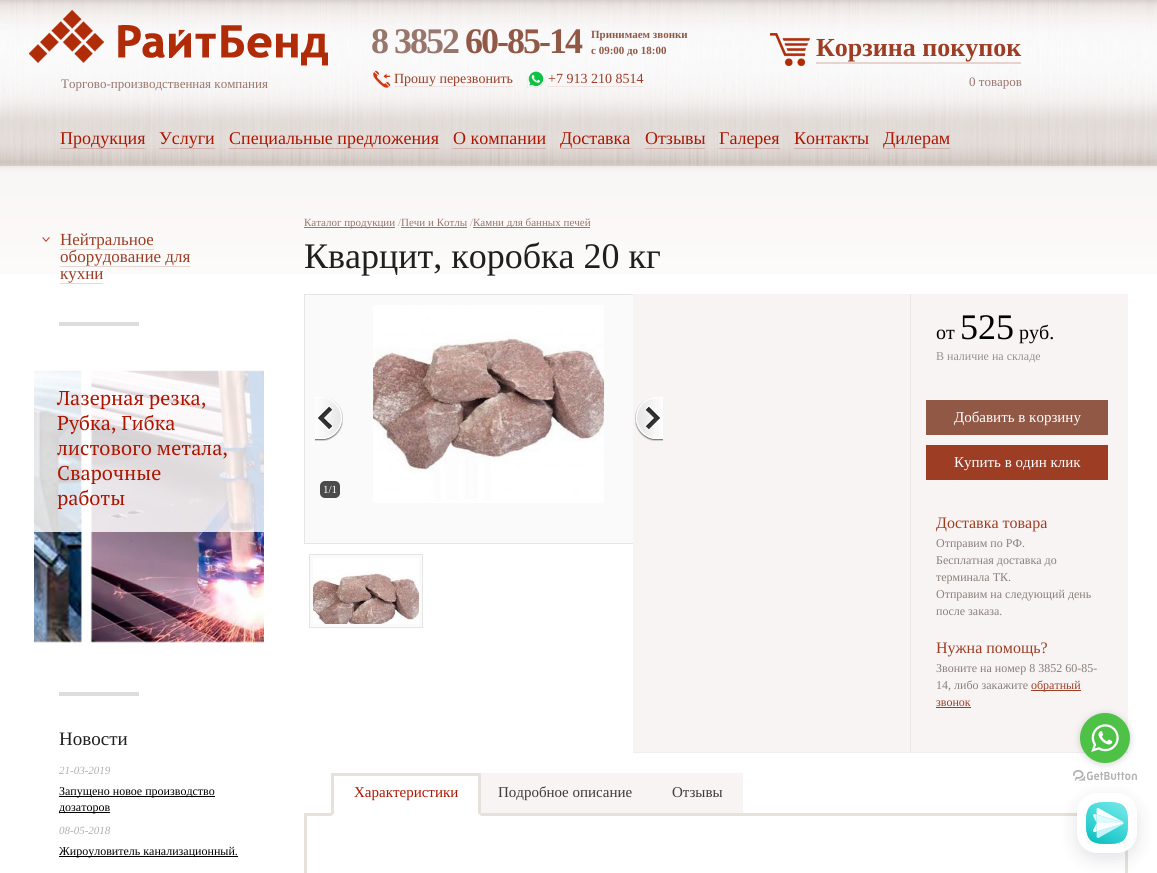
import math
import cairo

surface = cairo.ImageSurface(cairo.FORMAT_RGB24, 1157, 873)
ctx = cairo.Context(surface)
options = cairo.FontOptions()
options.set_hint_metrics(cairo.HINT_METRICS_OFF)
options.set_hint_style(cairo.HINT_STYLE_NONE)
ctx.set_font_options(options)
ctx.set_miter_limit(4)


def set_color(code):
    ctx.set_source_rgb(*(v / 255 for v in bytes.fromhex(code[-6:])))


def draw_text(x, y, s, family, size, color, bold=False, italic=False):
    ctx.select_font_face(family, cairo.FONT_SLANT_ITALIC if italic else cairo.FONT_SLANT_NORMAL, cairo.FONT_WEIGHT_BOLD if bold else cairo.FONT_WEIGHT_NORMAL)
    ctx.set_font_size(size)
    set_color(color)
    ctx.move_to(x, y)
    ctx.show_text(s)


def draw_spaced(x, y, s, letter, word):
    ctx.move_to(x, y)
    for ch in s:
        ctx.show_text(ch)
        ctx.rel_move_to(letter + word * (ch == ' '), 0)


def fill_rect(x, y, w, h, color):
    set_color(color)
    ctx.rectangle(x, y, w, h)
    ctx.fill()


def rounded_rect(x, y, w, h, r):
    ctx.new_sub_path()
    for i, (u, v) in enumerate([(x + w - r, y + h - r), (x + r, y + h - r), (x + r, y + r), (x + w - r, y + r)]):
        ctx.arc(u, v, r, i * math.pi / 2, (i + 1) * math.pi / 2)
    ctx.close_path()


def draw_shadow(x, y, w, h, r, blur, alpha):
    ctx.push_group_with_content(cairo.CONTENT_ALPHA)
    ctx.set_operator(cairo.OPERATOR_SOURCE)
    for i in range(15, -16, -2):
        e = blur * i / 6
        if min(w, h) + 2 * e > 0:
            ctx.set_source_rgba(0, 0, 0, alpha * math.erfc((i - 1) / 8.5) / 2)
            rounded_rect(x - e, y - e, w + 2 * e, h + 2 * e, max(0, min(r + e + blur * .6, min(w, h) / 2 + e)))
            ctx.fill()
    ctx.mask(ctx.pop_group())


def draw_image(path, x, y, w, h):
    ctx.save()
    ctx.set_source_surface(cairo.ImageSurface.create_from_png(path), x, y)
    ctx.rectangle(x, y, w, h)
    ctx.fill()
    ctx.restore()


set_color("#ffffff")
ctx.paint()
draw_image("assets/img1.png", 0, 0, 1157, 172)
draw_image("assets/img2.png", 29, 10, 299, 56)
draw_text(61, 88, "Торгово-производственная компания", "Liberation Serif", 13, "#98766c")
ctx.select_font_face("Liberation Serif", cairo.FONT_SLANT_NORMAL, cairo.FONT_WEIGHT_BOLD)
ctx.set_font_size(36)
draw_spaced(371, 53, "8 3852", -2, 0)
set_color("#915846")
draw_spaced(465, 53, "60-85-14", -2, 0)
draw_text(591, 38, "Принимаем звонки", "Liberation Serif", 11, "#915846", bold=True)
draw_text(591, 54, "с 09:00 до 18:00", "Liberation Serif", 11, "#915846", bold=True)
draw_image("assets/img3.png", 373, 70, 18, 19)
draw_text(394, 83, "Прошу перезвонить", "Liberation Serif", 14, "#9c3d24")
ctx.set_source_rgba(0.612, 0.239, 0.141, 0.1)
ctx.rectangle(394, 86, 119, 1)
ctx.fill()
draw_image("assets/img4.png", 527, 71, 18, 17)
draw_text(548, 83, "+7 913 210 8514", "Liberation Serif", 14, "#9c3d24")
ctx.set_source_rgba(0.612, 0.239, 0.141, 0.1)
ctx.rectangle(548, 86, 96, 1)
ctx.fill()
draw_image("assets/img5.png", 770, 33, 40, 33)
draw_text(816, 56, "Корзина покупок", "Liberation Serif", 26, "#9c3d24", bold=True)
ctx.set_source_rgba(0.612, 0.239, 0.141, 0.2)
ctx.rectangle(816, 62, 205, 2)
ctx.fill()
draw_text(969, 86, "0 товаров", "Liberation Serif", 13, "#98766c")
draw_text(60, 144, "Продукция", "Liberation Serif", 18, "#ad1601")
ctx.set_source_rgba(0.678, 0.086, 0.004, 0.2)
ctx.rectangle(60, 148, 85, 1)
ctx.fill()
draw_text(159, 144, "Услуги", "Liberation Serif", 18, "#ad1601")
ctx.set_source_rgba(0.678, 0.086, 0.004, 0.2)
ctx.rectangle(159, 148, 56, 1)
ctx.fill()
draw_text(229, 144, "Специальные предложения", "Liberation Serif", 18, "#ad1601")
ctx.set_source_rgba(0.678, 0.086, 0.004, 0.2)
ctx.rectangle(229, 148, 210, 1)
ctx.fill()
draw_text(453, 144, "О компании", "Liberation Serif", 18, "#ad1601")
ctx.set_source_rgba(0.678, 0.086, 0.004, 0.2)
ctx.rectangle(453, 148, 93, 1)
ctx.fill()
draw_text(560, 144, "Доставка", "Liberation Serif", 18, "#ad1601")
ctx.set_source_rgba(0.678, 0.086, 0.004, 0.2)
ctx.rectangle(560, 148, 71, 1)
ctx.fill()
draw_text(645, 144, "Отзывы", "Liberation Serif", 18, "#ad1601")
ctx.set_source_rgba(0.678, 0.086, 0.004, 0.2)
ctx.rectangle(645, 148, 60, 1)
ctx.fill()
draw_text(719, 144, "Галерея", "Liberation Serif", 18, "#ad1601")
ctx.set_source_rgba(0.678, 0.086, 0.004, 0.2)
ctx.rectangle(719, 148, 61, 1)
ctx.fill()
draw_text(794, 144, "Контакты", "Liberation Serif", 18, "#ad1601")
ctx.set_source_rgba(0.678, 0.086, 0.004, 0.2)
ctx.rectangle(794, 148, 75, 1)
ctx.fill()
draw_text(883, 144, "Дилерам", "Liberation Serif", 18, "#ad1601")
ctx.set_source_rgba(0.678, 0.086, 0.004, 0.2)
ctx.rectangle(883, 148, 67, 1)
ctx.fill()
draw_image("assets/img6.png", 0, 172, 1157, 102)
draw_image("assets/img7.png", 42, 237, 8, 5)
draw_text(60, 245, "Нейтральное", "Liberation Serif", 17, "#9c3d24")
fill_rect(60, 249, 94, 1, "#e9d4ce")
draw_text(60, 262, "оборудование для", "Liberation Serif", 17, "#9c3d24")
fill_rect(60, 266, 130, 1, "#e9d5cf")
draw_text(60, 279, "кухни", "Liberation Serif", 17, "#9c3d24")
fill_rect(60, 283, 43, 1, "#ebd8d3")
fill_rect(59, 322, 80, 4, "#dedddc")
draw_image("assets/img8.png", 34, 370, 230, 273)
ctx.set_source_rgba(1, 1, 1, 0.81)
ctx.rectangle(34, 370, 230, 162)
ctx.fill()
draw_text(57, 405, "Лазерная резка,", "PT Serif", 20, "#ad1601")
draw_text(57, 430, "Рубка, Гибка", "PT Serif", 20, "#ad1601")
draw_text(57, 455, "листового метала,", "PT Serif", 20, "#ad1601")
draw_text(57, 480, "Сварочные", "PT Serif", 20, "#ad1601")
draw_text(57, 505, "работы", "PT Serif", 20, "#ad1601")
fill_rect(59, 692, 80, 4, "#dedddc")
draw_text(59, 745, "Новости", "Liberation Serif", 19, "#1f1f1f")
draw_text(59, 774, "21-03-2019", "Liberation Serif", 11, "#b2aeac", italic=True)
fill_rect(59, 796, 156, 1, "#000000")
draw_text(59, 795, "Запущено новое производство", "Liberation Serif", 12, "#000000")
fill_rect(59, 812, 51, 1, "#000000")
draw_text(59, 811, "дозаторов", "Liberation Serif", 12, "#000000")
draw_text(59, 834, "08-05-2018", "Liberation Serif", 11, "#b2aeac", italic=True)
fill_rect(59, 856, 179, 1, "#000000")
draw_text(59, 855, "Жироуловитель канализационный.", "Liberation Serif", 12, "#000000")
fill_rect(304, 227, 91, 1, "#98766c")
draw_text(304, 226, "Каталог продукции", "Liberation Serif", 11, "#98766c")
draw_text(398, 226, "/", "Liberation Serif", 11, "#b2aeac")
draw_text(401, 226, "Печи и Котлы", "Liberation Serif", 11, "#98766c")
fill_rect(401, 227, 66, 1, "#98766c")
draw_text(470, 226, "/", "Liberation Serif", 11, "#b2aeac")
fill_rect(473, 227, 117, 1, "#98766c")
draw_text(473, 226, "Камни для банных печей", "Liberation Serif", 11, "#98766c")
draw_text(304, 268, "Кварцит, коробка 20 кг", "Liberation Serif", 36, "#1f1f1f")
fill_rect(305, 295, 328, 248, "#fafafa")
ctx.rectangle(304.5, 294.5, 369, 249)
set_color("#e5e5e5")
ctx.set_line_width(1)
ctx.stroke()
draw_image("assets/img9.png", 315, 397, 28, 44)
fill_rect(633, 294, 495, 458, "#f8f4f3")
draw_image("assets/img10.png", 635, 397, 28, 44)
set_color("#4b4b4b")
rounded_rect(320, 481, 20, 17, 5)
ctx.fill()
draw_text(323, 493, "1/1", "Liberation Serif", 11, "#ffffff")
draw_image("assets/img11.png", 373, 305, 231, 198)
set_color("#fafafa")
ctx.rectangle(309.5, 554.5, 113, 73)
ctx.fill_preserve()
set_color("#e5e5e5")
ctx.stroke()
draw_image("assets/img12.png", 313, 558, 106, 66)
fill_rect(633, 752, 495, 1, "#efedee")
fill_rect(910, 294, 1, 458, "#e9e5e4")
draw_text(936, 339, "от", "Liberation Serif", 20, "#000000")
draw_text(960, 339, "525", "Liberation Serif", 36, "#000000")
draw_text(1019, 339, "руб.", "Liberation Serif", 20, "#000000")
draw_text(936, 360, "В наличие на складе", "Liberation Serif", 12, "#929292")
fill_rect(926, 400, 182, 35, "#915846")
draw_text(954, 422, "Добавить в корзину", "Liberation Serif", 15, "#ffffff")
fill_rect(926, 445, 182, 35, "#9c3d24")
draw_text(954, 467, "Купить в один клик", "Liberation Serif", 15, "#ffffff")
draw_text(936, 528, "Доставка товара", "Liberation Serif", 16, "#9c3d24")
draw_text(936, 547, "Отправим по РФ.", "Liberation Serif", 12, "#897f7b")
draw_text(936, 564, "Бесплатная доставка до", "Liberation Serif", 12, "#897f7b")
draw_text(936, 581, "терминала ТК.", "Liberation Serif", 12, "#897f7b")
draw_text(936, 598, "Отправим на следующий день", "Liberation Serif", 12, "#897f7b")
draw_text(936, 615, "после заказа.", "Liberation Serif", 12, "#897f7b")
draw_text(936, 653, "Нужна помощь?", "Liberation Serif", 16, "#9c3d24")
draw_text(936, 672, "Звоните на номер 8 3852 60-85-", "Liberation Serif", 12, "#897f7b")
draw_text(936, 689, "14, либо закажите", "Liberation Serif", 12, "#897f7b")
fill_rect(1031, 690, 50, 1, "#9c3d24")
draw_text(1031, 689, "обратный", "Liberation Serif", 12, "#9c3d24")
draw_text(936, 706, "звонок", "Liberation Serif", 12, "#9c3d24")
fill_rect(936, 707, 35, 1, "#9c3d24")
fill_rect(331, 773, 150, 3, "#e7e1dc")
ctx.rectangle(305.5, 814.5, 821, 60)
ctx.set_line_width(3)
ctx.stroke()
ctx.new_path()
ctx.move_to(481, 773)
ctx.line_to(481, 816)
ctx.line_to(478, 813)
ctx.line_to(478, 776)
ctx.close_path()
ctx.fill()
set_color("#ffffff")
ctx.new_path()
ctx.move_to(481, 816)
ctx.line_to(331, 816)
ctx.line_to(334, 813)
ctx.line_to(478, 813)
ctx.close_path()
ctx.fill()
set_color("#e7e1dc")
ctx.new_path()
ctx.move_to(331, 816)
ctx.line_to(331, 773)
ctx.line_to(334, 776)
ctx.line_to(334, 813)
ctx.close_path()
ctx.fill()
draw_text(354, 797, "Характеристики", "Liberation Serif", 15, "#ad1601")
fill_rect(481, 773, 262, 40, "#f7f4f3")
draw_text(498, 797, "Подробное описание", "Liberation Serif", 15, "#3c3c3c")
draw_text(672, 797, "Отзывы", "Liberation Serif", 15, "#3c3c3c")
set_color("#0e152f")
draw_shadow(1077, 799, 60, 60, 20, 9, 0.13)
draw_image("assets/img14.png", 1073, 770, 64, 11)
set_color("#888888")
draw_shadow(1080, 714, 50, 50, 25, 3.5, 0.4)
set_color("#4dc247")
ctx.arc(1105, 738, 25, 0, 2 * math.pi)
ctx.fill()
draw_image("assets/img13.png", 1091, 724, 28, 28)
set_color("#ffffff")
rounded_rect(1077, 793, 60, 60, 20)
ctx.fill()
draw_image("assets/img15.png", 1086, 802, 42, 42)
surface.write_to_png("output.png")
